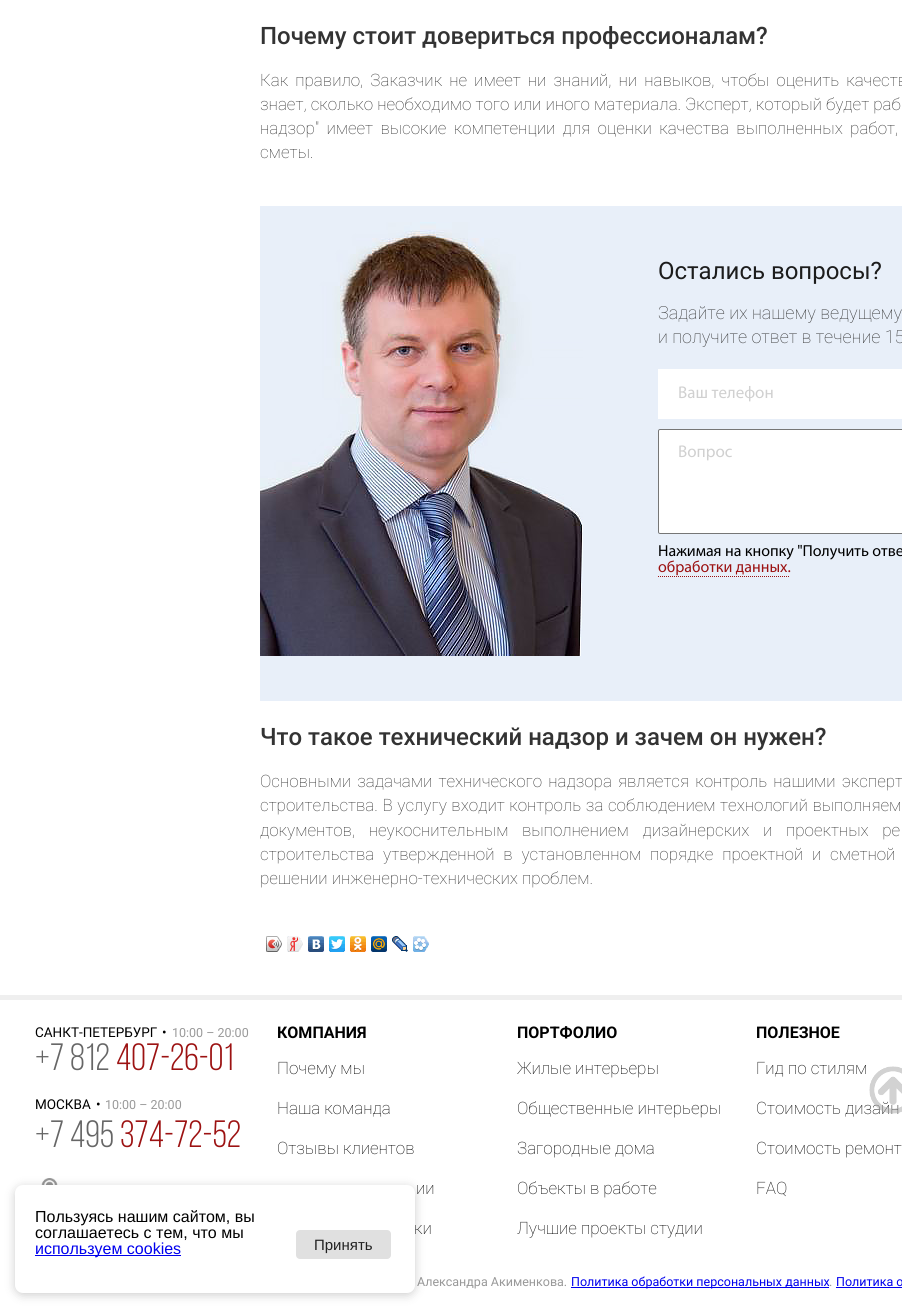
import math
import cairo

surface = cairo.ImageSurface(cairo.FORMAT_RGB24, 902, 1308)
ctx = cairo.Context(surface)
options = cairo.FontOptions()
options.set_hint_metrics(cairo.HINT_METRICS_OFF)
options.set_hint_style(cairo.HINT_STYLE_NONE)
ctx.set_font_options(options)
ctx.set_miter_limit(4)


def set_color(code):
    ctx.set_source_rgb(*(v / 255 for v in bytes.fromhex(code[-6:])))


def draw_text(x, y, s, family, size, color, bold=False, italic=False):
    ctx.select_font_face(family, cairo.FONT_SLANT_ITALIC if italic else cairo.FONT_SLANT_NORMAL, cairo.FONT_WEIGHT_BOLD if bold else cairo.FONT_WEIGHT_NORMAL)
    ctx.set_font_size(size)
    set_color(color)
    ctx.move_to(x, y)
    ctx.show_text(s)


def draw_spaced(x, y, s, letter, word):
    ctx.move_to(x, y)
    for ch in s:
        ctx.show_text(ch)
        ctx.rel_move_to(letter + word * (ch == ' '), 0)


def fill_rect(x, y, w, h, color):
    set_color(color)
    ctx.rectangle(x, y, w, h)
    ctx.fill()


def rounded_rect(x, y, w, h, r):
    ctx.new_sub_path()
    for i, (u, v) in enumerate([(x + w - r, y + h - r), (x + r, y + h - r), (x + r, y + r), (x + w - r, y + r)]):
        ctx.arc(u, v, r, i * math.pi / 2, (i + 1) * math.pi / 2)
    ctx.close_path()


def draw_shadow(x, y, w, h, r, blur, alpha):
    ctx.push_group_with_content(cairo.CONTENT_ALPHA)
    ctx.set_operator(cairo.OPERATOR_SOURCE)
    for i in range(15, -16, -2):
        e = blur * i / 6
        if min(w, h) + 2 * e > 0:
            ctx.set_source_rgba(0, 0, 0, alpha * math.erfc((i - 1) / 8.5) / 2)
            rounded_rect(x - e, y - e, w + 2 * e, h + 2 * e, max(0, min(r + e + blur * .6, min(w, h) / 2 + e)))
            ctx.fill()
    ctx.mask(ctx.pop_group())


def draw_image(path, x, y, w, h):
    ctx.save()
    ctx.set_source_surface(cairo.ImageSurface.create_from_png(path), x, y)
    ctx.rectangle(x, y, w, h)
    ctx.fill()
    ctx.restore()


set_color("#ffffff")
ctx.paint()
draw_text(260, 44, "Почему стоит довериться профессионалам?", "Roboto Medium", 24, "#333333")
ctx.select_font_face("Roboto Thin")
ctx.set_font_size(17)
draw_spaced(260, 86, "Как правило, Заказчик не имеет ни знаний, ни навыков, чтобы оценить качеств", 0, 3)
draw_text(260, 110, "знает, сколько необходимо того или иного материала. Эксперт, который будет раб", "Roboto Thin", 17, "#333333")
draw_spaced(260, 134, "надзор\" имеет высокие компетенции для оценки качества выполненных работ,", 0, 3.25)
draw_text(260, 158, "сметы.", "Roboto Thin", 17, "#333333")
fill_rect(260, 206, 642, 495, "#e8eff9")
draw_image("assets/img1.png", 260, 222, 323, 434)
draw_text(658, 279, "Остались вопросы?", "Roboto", 24, "#1c1c1c")
draw_text(658, 319, "Задайте их нашему ведущему", "Roboto Thin", 18, "#333333")
draw_text(658, 343, "и получите ответ в течение 15", "Roboto Thin", 18, "#333333")
fill_rect(658, 369, 244, 50, "#ffffff")
draw_text(678, 398, "Ваш телефон", "Myriad", 17, "#d0d0d0")
set_color("#ffffff")
rounded_rect(658.5, 429.5, 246, 104, 1.5)
ctx.fill_preserve()
set_color("#767676")
ctx.set_line_width(1)
ctx.stroke()
draw_text(678, 457, "Вопрос", "Myriad", 17, "#d0d0d0")
draw_text(658, 556, "Нажимая на кнопку \"Получить отве", "Myriad", 16, "#000000")
draw_text(658, 572, "обработки данных.", "Myriad", 16, "#9c1212")
ctx.new_path()
ctx.move_to(658, 576.5)
ctx.line_to(790, 576.5)
ctx.set_dash([1, 1])
ctx.stroke()
draw_text(260, 745, "Что такое технический надзор и зачем он нужен?", "Roboto Medium", 24, "#333333")
ctx.select_font_face("Roboto Thin")
ctx.set_font_size(17)
draw_spaced(260, 787, "Основными задачами технического надзора является контроль нашими эксперт", 0, 2)
draw_spaced(260, 811, "строительства. В услугу входит контроль за соблюдением технологий выполняем", 0, 0.5)
draw_spaced(260, 836, "документов, неукоснительным выполнением дизайнерских и проектных ре", 0, 9.5)
draw_spaced(260, 860, "строительства утвержденной в установленном порядке проектной и сметной", 0, 4.75)
draw_text(260, 884, "решении инженерно-технических проблем.", "Roboto Thin", 17, "#333333")
draw_image("assets/img2.png", 266, 936, 16, 16)
draw_image("assets/img3.png", 266, 936, 16, 16)
draw_image("assets/img4.png", 287, 936, 16, 16)
draw_image("assets/img5.png", 308, 936, 16, 16)
draw_image("assets/img6.png", 329, 936, 16, 16)
draw_image("assets/img7.png", 350, 936, 16, 16)
draw_image("assets/img8.png", 371, 936, 16, 16)
draw_image("assets/img9.png", 392, 936, 16, 16)
draw_image("assets/img10.png", 413, 936, 16, 16)
fill_rect(0, 995, 902, 5, "#efefef")
draw_text(35, 1037, "САНКТ-ПЕТЕРБУРГ", "Roboto", 13.5, "#000000")
draw_text(162, 1037, "•", "Roboto", 13.5, "#000000")
draw_text(172, 1037, "10:00 – 20:00", "Roboto", 12.5, "#999999")
draw_text(35, 1070, "+7 812", "Bebas Neue", 38, "#666666")
draw_text(116, 1070, "407-26-01", "Bebas Neue", 38, "#9c1212")
draw_text(35, 1109, "МОСКВА", "Roboto", 13.5, "#000000")
draw_text(96, 1109, "•", "Roboto", 13.5, "#000000")
draw_text(105, 1109, "10:00 – 20:00", "Roboto", 12.5, "#999999")
draw_text(35, 1147, "+7 495", "Bebas Neue", 38, "#666666")
draw_text(120, 1147, "374-72-52", "Bebas Neue", 38, "#9c1212")
draw_image("assets/img11.png", 41, 1178, 17, 7)
draw_text(277, 1038, "КОМПАНИЯ", "Roboto", 16, "#000000", bold=True)
draw_text(277, 1074, "Почему мы", "Roboto Thin", 17, "#000000")
draw_text(277, 1114, "Наша команда", "Roboto Thin", 17, "#000000")
draw_text(277, 1154, "Отзывы клиентов", "Roboto Thin", 17, "#000000")
draw_text(416, 1194, "ии", "Roboto Thin", 17, "#000000")
draw_text(414, 1234, "ки", "Roboto Thin", 17, "#000000")
draw_text(517, 1038, "ПОРТФОЛИО", "Roboto", 16, "#000000", bold=True)
draw_text(517, 1074, "Жилые интерьеры", "Roboto Thin", 17, "#000000")
draw_text(517, 1114, "Общественные интерьеры", "Roboto Thin", 17, "#000000")
draw_text(517, 1154, "Загородные дома", "Roboto Thin", 17, "#000000")
draw_text(517, 1194, "Объекты в работе", "Roboto Thin", 17, "#000000")
draw_text(517, 1234, "Лучшие проекты студии", "Roboto Thin", 17, "#000000")
draw_text(756, 1038, "ПОЛЕЗНОЕ", "Roboto", 16, "#000000", bold=True)
draw_text(756, 1074, "Гид по стилям", "Roboto Thin", 17, "#000000")
draw_text(756, 1114, "Стоимость дизайн", "Roboto Thin", 17, "#000000")
draw_text(756, 1154, "Стоимость ремонт", "Roboto Thin", 17, "#000000")
draw_text(756, 1194, "FAQ", "Roboto Thin", 17, "#000000")
draw_text(417, 1286, "Александра Акименкова.", "Roboto", 12.5, "#999999")
fill_rect(571, 1287, 258, 1, "#0000ee")
draw_text(571, 1286, "Политика обработки персональных данных", "Roboto", 12.5, "#0000ee")
draw_text(829, 1286, ".", "Roboto", 12.5, "#999999")
fill_rect(836, 1287, 66, 1, "#0000ee")
draw_text(836, 1286, "Политика о", "Roboto", 12.5, "#0000ee")
draw_image("assets/img12.png", 869, 1066, 33, 48)
set_color("#000000")
draw_shadow(15, 1187, 400, 108, 8, 5, 0.2)
set_color("#ffffff")
rounded_rect(15, 1185, 400, 108, 8)
ctx.fill()
draw_text(35, 1222, "Пользуясь нашим сайтом, вы", "Liberation Sans", 16, "#000000")
draw_text(35, 1238, "соглашаетесь с тем, что мы", "Liberation Sans", 16, "#000000")
fill_rect(35, 1255, 146, 1, "#0000ee")
draw_text(35, 1254, "используем cookies", "Liberation Sans", 16, "#0000ee")
set_color("#e0e0e0")
rounded_rect(296, 1230, 95, 29, 4)
ctx.fill()
draw_text(314, 1250, "Принять", "Liberation Sans", 15, "#222222")
surface.write_to_png("output.png")
